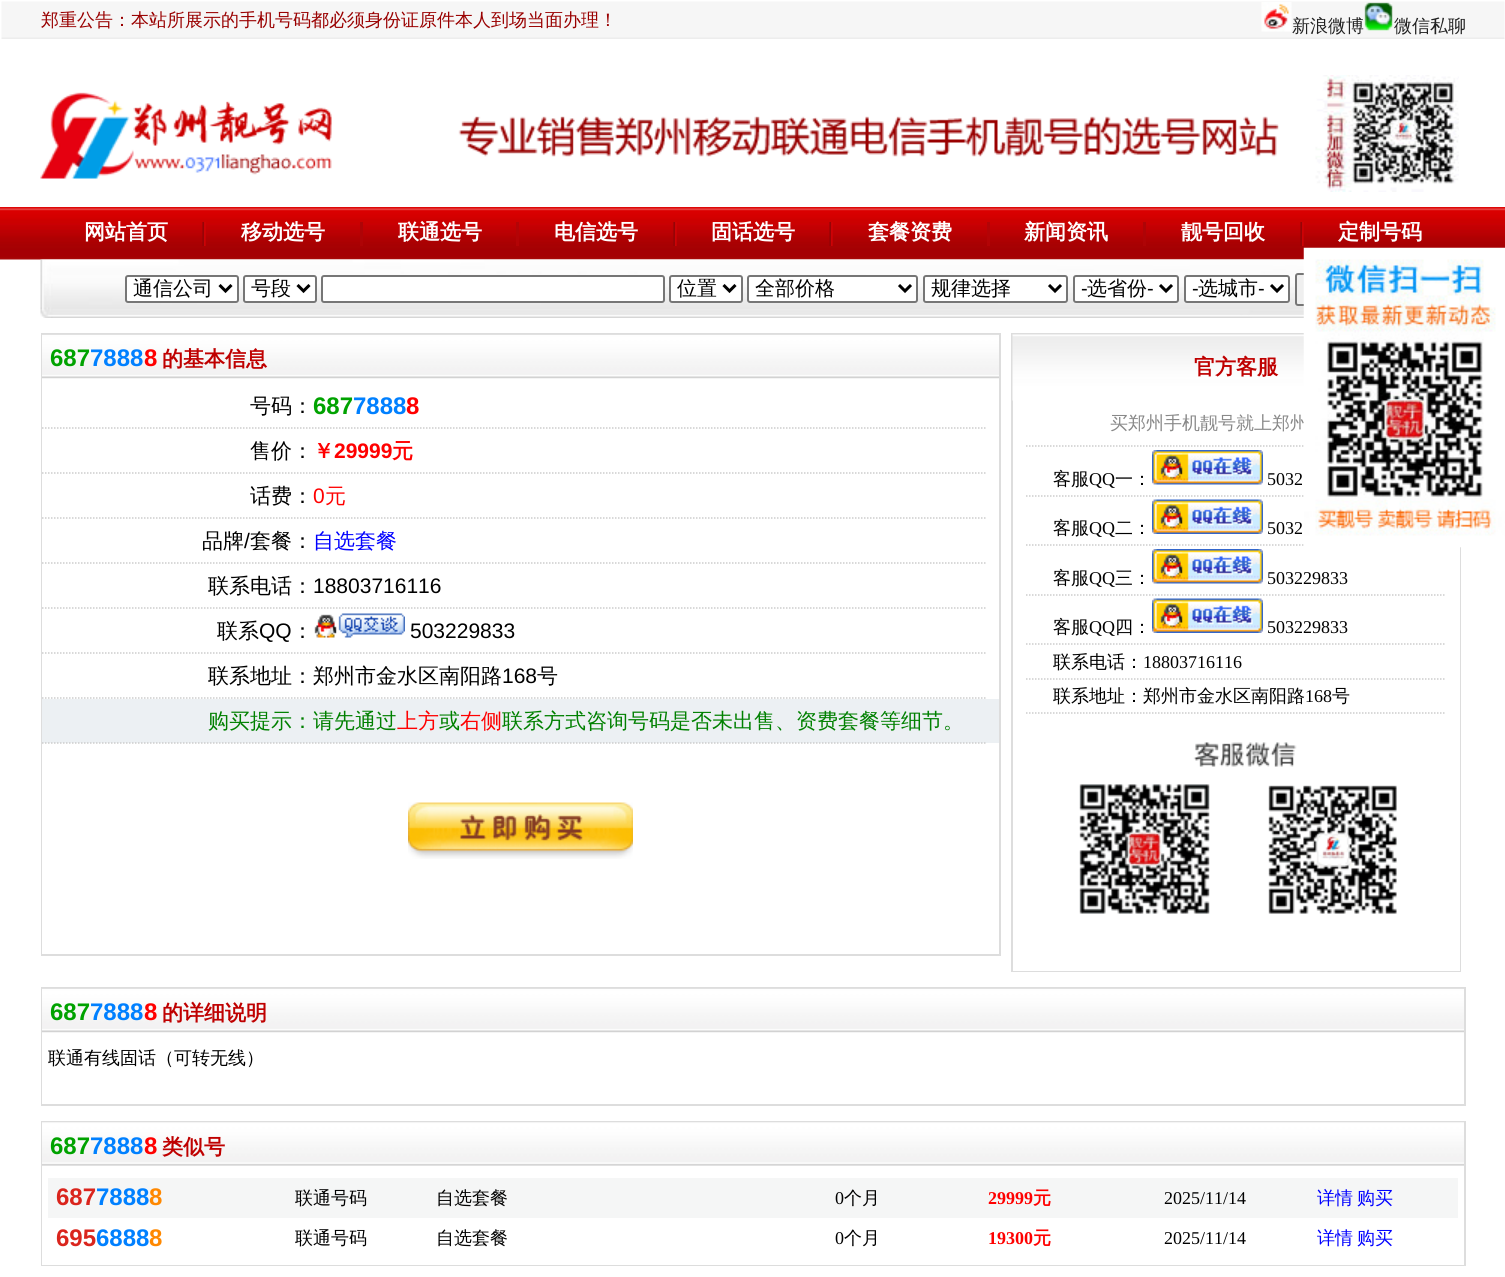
import math
import cairo

surface = cairo.ImageSurface(cairo.FORMAT_RGB24, 1505, 1277)
ctx = cairo.Context(surface)
options = cairo.FontOptions()
options.set_hint_metrics(cairo.HINT_METRICS_OFF)
options.set_hint_style(cairo.HINT_STYLE_NONE)
ctx.set_font_options(options)
ctx.set_miter_limit(4)


def set_color(code):
    ctx.set_source_rgb(*(v / 255 for v in bytes.fromhex(code[-6:])))


def draw_text(x, y, s, family, size, color, bold=False, italic=False):
    ctx.select_font_face(family, cairo.FONT_SLANT_ITALIC if italic else cairo.FONT_SLANT_NORMAL, cairo.FONT_WEIGHT_BOLD if bold else cairo.FONT_WEIGHT_NORMAL)
    ctx.set_font_size(size)
    set_color(color)
    ctx.move_to(x, y)
    ctx.show_text(s)


def fill_rect(x, y, w, h, color):
    set_color(color)
    ctx.rectangle(x, y, w, h)
    ctx.fill()


def rounded_rect(x, y, w, h, r):
    ctx.new_sub_path()
    for i, (u, v) in enumerate([(x + w - r, y + h - r), (x + r, y + h - r), (x + r, y + r), (x + w - r, y + r)]):
        ctx.arc(u, v, r, i * math.pi / 2, (i + 1) * math.pi / 2)
    ctx.close_path()


def draw_image(path, x, y, w, h):
    ctx.save()
    ctx.set_source_surface(cairo.ImageSurface.create_from_png(path), x, y)
    ctx.rectangle(x, y, w, h)
    ctx.fill()
    ctx.restore()


set_color("#ffffff")
ctx.paint()
draw_image("assets/img1.png", 1, 1, 1504, 38)
draw_text(41, 26, "郑重公告：本站所展示的手机号码都必须身份证原件本人到场当面办理！", "WenQuanYi Zen Hei Medium", 18, "#990000")
draw_image("assets/img2.png", 1261, 2, 31, 30)
draw_text(1292, 32, "新浪微博", "WenQuanYi Zen Hei Medium", 18, "#222222")
draw_image("assets/img3.png", 1364, 2, 29, 29)
draw_text(1394, 32, "微信私聊", "WenQuanYi Zen Hei Medium", 18, "#222222")
draw_image("assets/img4.png", 40, 92, 292, 87)
draw_image("assets/img5.png", 458, 75, 1001, 117)
draw_image("assets/img6.png", 0, 207, 1505, 53)
draw_text(84, 239, "网站首页", "WenQuanYi Zen Hei", 21, "#ffffff", bold=True)
draw_image("assets/img7.png", 202, 222, 4, 24)
draw_text(241, 239, "移动选号", "WenQuanYi Zen Hei", 21, "#ffffff", bold=True)
fill_rect(360, 222, 3, 24, "#ae0406")
draw_text(398, 239, "联通选号", "WenQuanYi Zen Hei", 21, "#ffffff", bold=True)
fill_rect(516, 222, 3, 24, "#b30406")
draw_text(554, 239, "电信选号", "WenQuanYi Zen Hei", 21, "#ffffff", bold=True)
draw_image("assets/img7.png", 673, 222, 4, 24)
draw_text(711, 239, "固话选号", "WenQuanYi Zen Hei", 21, "#ffffff", bold=True)
draw_image("assets/img7.png", 829, 222, 4, 24)
draw_text(868, 239, "套餐资费", "WenQuanYi Zen Hei", 21, "#ffffff", bold=True)
fill_rect(987, 222, 3, 24, "#b30406")
draw_text(1024, 239, "新闻资讯", "WenQuanYi Zen Hei", 21, "#ffffff", bold=True)
fill_rect(1143, 222, 3, 24, "#ae0406")
draw_text(1181, 239, "靓号回收", "WenQuanYi Zen Hei", 21, "#ffffff", bold=True)
draw_image("assets/img7.png", 1300, 222, 4, 24)
draw_text(1338, 239, "定制号码", "WenQuanYi Zen Hei", 21, "#ffffff", bold=True)
draw_image("assets/img8.png", 40, 259, 1264, 59)
rounded_rect(126, 276, 112, 26, 2)
ctx.fill_preserve()
set_color("#767676")
ctx.stroke()
ctx.new_path()
ctx.move_to(219.5, 285)
ctx.line_to(225.5, 291)
ctx.line_to(231.5, 285)
set_color("#000000")
ctx.set_line_width(3)
ctx.stroke()
draw_text(133, 295, "通信公司", "WenQuanYi Zen Hei Medium", 20, "#000000")
set_color("#ffffff")
rounded_rect(244, 276, 72, 26, 2)
ctx.fill_preserve()
set_color("#767676")
ctx.set_line_width(2)
ctx.stroke()
ctx.new_path()
ctx.move_to(297.5, 285)
ctx.line_to(303.5, 291)
ctx.line_to(309.5, 285)
set_color("#000000")
ctx.set_line_width(3)
ctx.stroke()
draw_text(251, 295, "号段", "WenQuanYi Zen Hei Medium", 20, "#000000")
set_color("#ffffff")
rounded_rect(322, 276, 342, 26, 2)
ctx.fill_preserve()
set_color("#767676")
ctx.set_line_width(2)
ctx.stroke()
set_color("#ffffff")
rounded_rect(670, 276, 72, 26, 2)
ctx.fill_preserve()
set_color("#767676")
ctx.stroke()
ctx.new_path()
ctx.move_to(723.5, 285)
ctx.line_to(729.5, 291)
ctx.line_to(735.5, 285)
set_color("#000000")
ctx.set_line_width(3)
ctx.stroke()
draw_text(677, 295, "位置", "WenQuanYi Zen Hei Medium", 20, "#000000")
set_color("#ffffff")
rounded_rect(748, 276, 169, 26, 2)
ctx.fill_preserve()
set_color("#767676")
ctx.set_line_width(2)
ctx.stroke()
ctx.new_path()
ctx.move_to(899, 285)
ctx.line_to(905, 291)
ctx.line_to(911, 285)
set_color("#000000")
ctx.set_line_width(3)
ctx.stroke()
draw_text(755, 295, "全部价格", "WenQuanYi Zen Hei Medium", 20, "#000000")
set_color("#ffffff")
rounded_rect(924, 276, 143, 26, 2)
ctx.fill_preserve()
set_color("#767676")
ctx.set_line_width(2)
ctx.stroke()
ctx.new_path()
ctx.move_to(1049, 285)
ctx.line_to(1055, 291)
ctx.line_to(1061, 285)
set_color("#000000")
ctx.set_line_width(3)
ctx.stroke()
draw_text(931, 295, "规律选择", "WenQuanYi Zen Hei Medium", 20, "#000000")
set_color("#ffffff")
rounded_rect(1074, 276, 104, 26, 2)
ctx.fill_preserve()
set_color("#767676")
ctx.set_line_width(2)
ctx.stroke()
ctx.new_path()
ctx.move_to(1160, 285)
ctx.line_to(1166, 291)
ctx.line_to(1172, 285)
set_color("#000000")
ctx.set_line_width(3)
ctx.stroke()
draw_text(1081, 295, "-", "Liberation Sans", 20, "#000000")
draw_text(1087, 295, "选省份", "WenQuanYi Zen Hei Medium", 20, "#000000")
draw_text(1147, 295, "-", "Liberation Sans", 20, "#000000")
set_color("#ffffff")
rounded_rect(1185, 276, 104, 26, 2)
ctx.fill_preserve()
set_color("#767676")
ctx.set_line_width(2)
ctx.stroke()
ctx.new_path()
ctx.move_to(1271, 285)
ctx.line_to(1277, 291)
ctx.line_to(1283, 285)
set_color("#000000")
ctx.set_line_width(3)
ctx.stroke()
draw_text(1192, 295, "-", "Liberation Sans", 20, "#000000")
draw_text(1198, 295, "选城市", "WenQuanYi Zen Hei Medium", 20, "#000000")
draw_text(1258, 295, "-", "Liberation Sans", 20, "#000000")
set_color("#efefef")
rounded_rect(1296, 274, 85, 31, 2)
ctx.fill_preserve()
set_color("#767676")
ctx.set_line_width(2)
ctx.stroke()
fill_rect(41, 333, 960, 623, "#dddddd")
fill_rect(42, 379, 957, 575, "#ffffff")
draw_image("assets/img9.png", 42, 334, 957, 45)
draw_text(50, 366, "687", "Liberation Sans", 24, "#00a200", bold=True)
draw_text(90, 366, "7888", "Liberation Sans", 24, "#0080ff", bold=True)
draw_text(144, 366, "8", "Liberation Sans", 24, "#ff0000", bold=True)
draw_text(162, 366, "的基本信息", "WenQuanYi Zen Hei", 21, "#bf0000", bold=True)
draw_text(250, 413, "号码：", "WenQuanYi Zen Hei Medium", 21, "#000000")
draw_text(313, 414, "687", "Liberation Sans", 24, "#00a200", bold=True)
draw_text(353, 414, "7888", "Liberation Sans", 24, "#0080ff", bold=True)
draw_text(406, 414, "8", "Liberation Sans", 24, "#ff0000", bold=True)
ctx.new_path()
ctx.move_to(42, 428)
ctx.line_to(987, 428)
set_color("#cccccc")
ctx.set_line_width(1.5)
ctx.set_dash([1.5, 1.5])
ctx.stroke()
draw_text(250, 458, "售价：", "WenQuanYi Zen Hei Medium", 21, "#000000")
draw_text(313, 458, "￥", "WenQuanYi Zen Hei", 21, "#ff0000", bold=True)
draw_text(334, 458, "29999", "Liberation Sans", 21, "#ff0000", bold=True)
draw_text(392, 458, "元", "WenQuanYi Zen Hei", 21, "#ff0000", bold=True)
ctx.new_path()
ctx.move_to(42, 473)
ctx.line_to(987, 473)
set_color("#cccccc")
ctx.stroke()
draw_text(250, 503, "话费：", "WenQuanYi Zen Hei Medium", 21, "#000000")
draw_text(313, 503, "0", "Liberation Sans", 21, "#ff0000")
draw_text(325, 503, "元", "WenQuanYi Zen Hei Medium", 21, "#ff0000")
ctx.new_path()
ctx.move_to(42, 518)
ctx.line_to(987, 518)
set_color("#cccccc")
ctx.stroke()
draw_text(202, 548, "品牌", "WenQuanYi Zen Hei Medium", 21, "#000000")
draw_text(244, 548, "/", "Liberation Sans", 21, "#000000")
draw_text(250, 548, "套餐：", "WenQuanYi Zen Hei Medium", 21, "#000000")
draw_text(313, 548, "自选套餐", "WenQuanYi Zen Hei Medium", 21, "#0000ff")
ctx.new_path()
ctx.move_to(42, 563)
ctx.line_to(987, 563)
set_color("#cccccc")
ctx.stroke()
draw_text(208, 593, "联系电话：", "WenQuanYi Zen Hei Medium", 21, "#000000")
draw_text(313, 593, "18803716116", "Liberation Sans", 21, "#000000")
ctx.new_path()
ctx.move_to(42, 608)
ctx.line_to(987, 608)
set_color("#cccccc")
ctx.stroke()
draw_text(217, 638, "联系", "WenQuanYi Zen Hei Medium", 21, "#000000")
draw_text(259, 638, "QQ", "Liberation Sans", 21, "#000000")
draw_text(292, 638, "：", "WenQuanYi Zen Hei Medium", 21, "#000000")
draw_image("assets/img10.png", 314, 613, 91, 25)
draw_text(410, 638, "503229833", "Liberation Sans", 21, "#000000")
ctx.new_path()
ctx.move_to(42, 653)
ctx.line_to(987, 653)
set_color("#cccccc")
ctx.stroke()
draw_text(208, 683, "联系地址：郑州市金水区南阳路", "WenQuanYi Zen Hei Medium", 21, "#000000")
draw_text(502, 683, "168", "Liberation Sans", 21, "#000000")
draw_text(537, 683, "号", "WenQuanYi Zen Hei Medium", 21, "#000000")
ctx.new_path()
ctx.move_to(42, 698)
ctx.line_to(987, 698)
set_color("#cccccc")
ctx.stroke()
fill_rect(42, 699, 957, 44, "#ecf0f3")
draw_text(208, 728, "购买提示：请先通过", "WenQuanYi Zen Hei Medium", 21, "#008000")
draw_text(397, 728, "上方", "WenQuanYi Zen Hei Medium", 21, "#ff0000")
draw_text(439, 728, "或", "WenQuanYi Zen Hei Medium", 21, "#008000")
draw_text(460, 728, "右侧", "WenQuanYi Zen Hei Medium", 21, "#ff0000")
draw_text(502, 728, "联系方式咨询号码是否未出售、资费套餐等细节。", "WenQuanYi Zen Hei Medium", 21, "#008000")
ctx.new_path()
ctx.move_to(42, 743)
ctx.line_to(987, 743)
set_color("#cccccc")
ctx.stroke()
draw_image("assets/img11.png", 408, 802, 225, 57)
fill_rect(1011, 333, 450, 639, "#dddddd")
fill_rect(1013, 400, 447, 571, "#ffffff")
draw_image("assets/img12.png", 1012, 334, 292, 67)
draw_text(1194, 374, "官方客服", "WenQuanYi Zen Hei", 21, "#bf0000", bold=True)
draw_text(1110, 429, "买郑州手机靓号就上郑州", "WenQuanYi Zen Hei Medium", 18, "#888888")
ctx.new_path()
ctx.move_to(1026, 446)
ctx.line_to(1446, 446)
set_color("#cccccc")
ctx.stroke()
draw_text(1053, 485, "客服", "WenQuanYi Zen Hei Medium", 18, "#000000")
draw_text(1089, 485, "QQ", "Liberation Serif", 18, "#000000")
draw_text(1115, 485, "一：", "WenQuanYi Zen Hei Medium", 18, "#000000")
draw_image("assets/img13.png", 1152, 450, 111, 35)
draw_text(1267, 485, "5032", "Liberation Serif", 18, "#000000")
ctx.new_path()
ctx.move_to(1026, 496)
ctx.line_to(1446, 496)
set_color("#cccccc")
ctx.stroke()
draw_text(1053, 534, "客服", "WenQuanYi Zen Hei Medium", 18, "#000000")
draw_text(1089, 534, "QQ", "Liberation Serif", 18, "#000000")
draw_text(1115, 534, "二：", "WenQuanYi Zen Hei Medium", 18, "#000000")
draw_image("assets/img14.png", 1152, 499, 111, 35)
draw_text(1267, 534, "5032", "Liberation Serif", 18, "#000000")
ctx.new_path()
ctx.move_to(1026, 545)
ctx.line_to(1446, 545)
set_color("#cccccc")
ctx.stroke()
draw_text(1053, 584, "客服", "WenQuanYi Zen Hei Medium", 18, "#000000")
draw_text(1089, 584, "QQ", "Liberation Serif", 18, "#000000")
draw_text(1115, 584, "三：", "WenQuanYi Zen Hei Medium", 18, "#000000")
draw_image("assets/img13.png", 1152, 549, 111, 35)
draw_text(1267, 584, "503229833", "Liberation Serif", 18, "#000000")
ctx.new_path()
ctx.move_to(1026, 595)
ctx.line_to(1446, 595)
set_color("#cccccc")
ctx.stroke()
draw_text(1053, 633, "客服", "WenQuanYi Zen Hei Medium", 18, "#000000")
draw_text(1089, 633, "QQ", "Liberation Serif", 18, "#000000")
draw_text(1115, 633, "四：", "WenQuanYi Zen Hei Medium", 18, "#000000")
draw_image("assets/img14.png", 1152, 598, 111, 35)
draw_text(1267, 633, "503229833", "Liberation Serif", 18, "#000000")
ctx.new_path()
ctx.move_to(1026, 644)
ctx.line_to(1446, 644)
set_color("#cccccc")
ctx.stroke()
draw_text(1053, 668, "联系电话：", "WenQuanYi Zen Hei Medium", 18, "#000000")
draw_text(1143, 668, "18803716116", "Liberation Serif", 18, "#000000")
ctx.new_path()
ctx.move_to(1026, 679)
ctx.line_to(1446, 679)
set_color("#cccccc")
ctx.stroke()
draw_text(1053, 702, "联系地址：郑州市金水区南阳路", "WenQuanYi Zen Hei Medium", 18, "#000000")
draw_text(1305, 702, "168", "Liberation Serif", 18, "#000000")
draw_text(1332, 702, "号", "WenQuanYi Zen Hei Medium", 18, "#000000")
ctx.new_path()
ctx.move_to(1026, 713)
ctx.line_to(1446, 713)
set_color("#cccccc")
ctx.stroke()
draw_image("assets/img15.png", 1079, 742, 318, 172)
draw_image("assets/img16.png", 1303, 247, 202, 301)
fill_rect(41, 987, 1425, 119, "#dddddd")
fill_rect(42, 1033, 1422, 71, "#ffffff")
draw_image("assets/img17.png", 42, 988, 1422, 45)
draw_text(50, 1020, "687", "Liberation Sans", 24, "#00a200", bold=True)
draw_text(90, 1020, "7888", "Liberation Sans", 24, "#0080ff", bold=True)
draw_text(144, 1020, "8", "Liberation Sans", 24, "#ff0000", bold=True)
draw_text(162, 1020, "的详细说明", "WenQuanYi Zen Hei", 21, "#bf0000", bold=True)
draw_text(48, 1064, "联通有线固话（可转无线）", "WenQuanYi Zen Hei Medium", 18, "#000000")
fill_rect(41, 1121, 1425, 145, "#dddddd")
fill_rect(42, 1166, 1422, 99, "#ffffff")
draw_image("assets/img18.png", 42, 1122, 1422, 44)
draw_text(50, 1154, "687", "Liberation Sans", 24, "#00a200", bold=True)
draw_text(90, 1154, "7888", "Liberation Sans", 24, "#0080ff", bold=True)
draw_text(144, 1154, "8", "Liberation Sans", 24, "#ff0000", bold=True)
draw_text(162, 1154, "类似号", "WenQuanYi Zen Hei", 21, "#bf0000", bold=True)
fill_rect(48, 1178, 1410, 40, "#f5f6f6")
draw_text(56, 1205, "687", "Liberation Sans", 24, "#da251d", bold=True)
draw_text(96, 1205, "7888", "Liberation Sans", 24, "#0080ff", bold=True)
draw_text(149, 1205, "8", "Liberation Sans", 24, "#ff8800", bold=True)
draw_text(295, 1204, "联通号码", "WenQuanYi Zen Hei Medium", 18, "#000000")
draw_text(436, 1204, "自选套餐", "WenQuanYi Zen Hei Medium", 18, "#000000")
draw_text(835, 1204, "0", "Liberation Serif", 18, "#000000")
draw_text(844, 1204, "个月", "WenQuanYi Zen Hei Medium", 18, "#000000")
draw_text(988, 1204, "29999", "Liberation Serif", 18, "#ff0000", bold=True)
draw_text(1033, 1204, "元", "WenQuanYi Zen Hei", 18, "#ff0000", bold=True)
draw_text(1164, 1204, "2025/11/14", "Liberation Serif", 18, "#000000")
draw_text(1317, 1204, "详情", "WenQuanYi Zen Hei Medium", 18, "#0000ff")
draw_text(1357, 1204, "购买", "WenQuanYi Zen Hei Medium", 18, "#0000ff")
draw_text(56, 1246, "695", "Liberation Sans", 24, "#da251d", bold=True)
draw_text(96, 1246, "6888", "Liberation Sans", 24, "#0080ff", bold=True)
draw_text(149, 1246, "8", "Liberation Sans", 24, "#ff8800", bold=True)
draw_text(295, 1244, "联通号码", "WenQuanYi Zen Hei Medium", 18, "#000000")
draw_text(436, 1244, "自选套餐", "WenQuanYi Zen Hei Medium", 18, "#000000")
draw_text(835, 1244, "0", "Liberation Serif", 18, "#000000")
draw_text(844, 1244, "个月", "WenQuanYi Zen Hei Medium", 18, "#000000")
draw_text(988, 1244, "19300", "Liberation Serif", 18, "#ff0000", bold=True)
draw_text(1033, 1244, "元", "WenQuanYi Zen Hei", 18, "#ff0000", bold=True)
draw_text(1164, 1244, "2025/11/14", "Liberation Serif", 18, "#000000")
draw_text(1317, 1244, "详情", "WenQuanYi Zen Hei Medium", 18, "#0000ff")
draw_text(1357, 1244, "购买", "WenQuanYi Zen Hei Medium", 18, "#0000ff")
surface.write_to_png("output.png")
